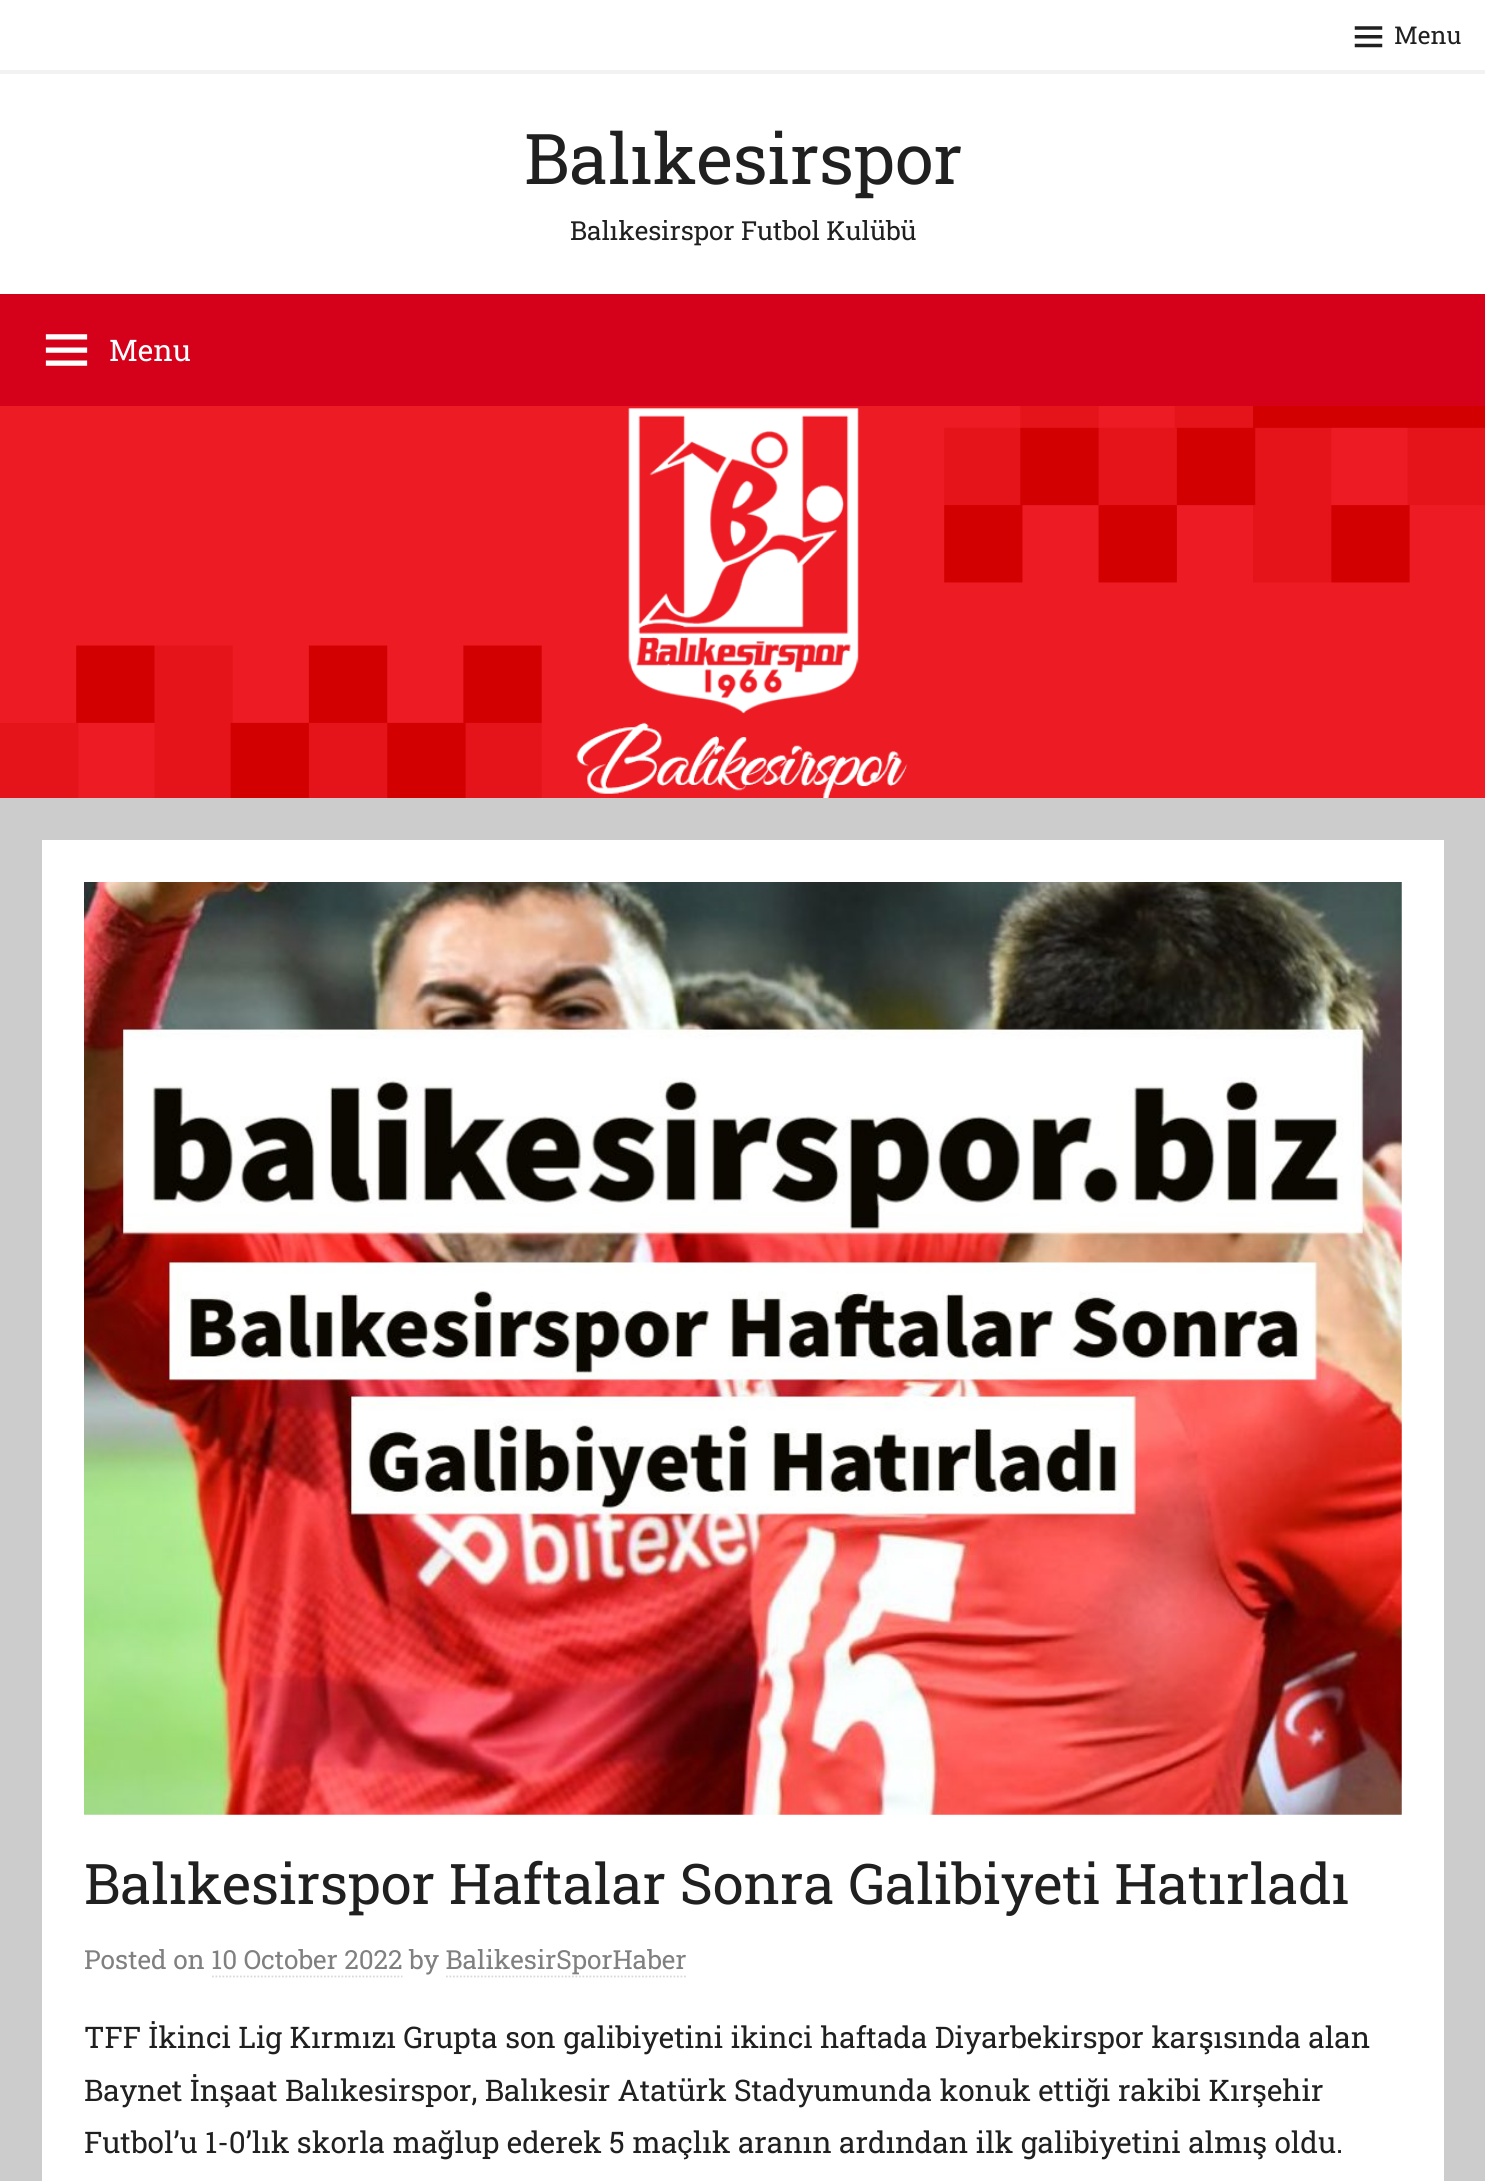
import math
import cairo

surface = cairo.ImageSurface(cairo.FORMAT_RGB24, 1485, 2181)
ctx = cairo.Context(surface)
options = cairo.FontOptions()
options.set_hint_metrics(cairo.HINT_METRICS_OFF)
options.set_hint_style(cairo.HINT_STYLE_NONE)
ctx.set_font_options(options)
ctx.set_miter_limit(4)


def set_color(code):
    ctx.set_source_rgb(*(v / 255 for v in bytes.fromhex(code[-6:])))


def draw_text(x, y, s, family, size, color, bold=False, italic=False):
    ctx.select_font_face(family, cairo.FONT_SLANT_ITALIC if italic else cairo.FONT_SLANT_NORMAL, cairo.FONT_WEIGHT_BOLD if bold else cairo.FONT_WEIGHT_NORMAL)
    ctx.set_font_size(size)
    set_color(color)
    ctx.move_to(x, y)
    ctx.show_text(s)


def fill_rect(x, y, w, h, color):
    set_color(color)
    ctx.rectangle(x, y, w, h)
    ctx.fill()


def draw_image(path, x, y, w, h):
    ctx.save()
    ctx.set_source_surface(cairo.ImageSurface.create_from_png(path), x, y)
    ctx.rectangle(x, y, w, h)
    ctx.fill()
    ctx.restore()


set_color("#cccccc")
ctx.paint()
fill_rect(0, 0, 1485, 70, "#ffffff")
fill_rect(0, 70, 1485, 4, "#f2f2f2")
draw_image("assets/img1.png", 1354, 26, 29, 22)
draw_text(1394, 44, "Menu", "Roboto Slab", 24.5, "#202020")
fill_rect(0, 74, 1485, 220, "#ffffff")
draw_text(524, 184, "Balıkesirspor", "Roboto Slab", 70, "#202020")
draw_text(570, 240, "Balıkesirspor Futbol Kulübü", "Roboto Slab", 26.25, "#202020")
fill_rect(0, 294, 1485, 112, "#d5001a")
draw_image("assets/img2.png", 45, 334, 43, 32)
draw_text(109, 361, "Menu", "Roboto Slab", 29.75, "#ffffff")
draw_image("assets/img3.png", 0, 406, 1485, 392)
fill_rect(42, 840, 1402, 1341, "#ffffff")
draw_image("assets/img4.png", 84, 882, 1318, 933)
draw_text(84, 1904, "Balıkesirspor Haftalar Sonra Galibiyeti Hatırladı", "Roboto Slab", 56, "#202020")
draw_text(84, 1969, "Posted on 10 October 2022 by BalikesirSporHaber", "Roboto Slab", 26.25, "#808080")
ctx.new_path()
ctx.move_to(212, 1976.5)
ctx.line_to(402.5, 1976.5)
set_color("#d9d9d9")
ctx.set_line_width(1.8)
ctx.set_dash([1.75, 1.75])
ctx.stroke()
ctx.new_path()
ctx.move_to(446, 1976.5)
ctx.line_to(686, 1976.5)
ctx.stroke()
draw_text(84, 2048, "TFF İkinci Lig Kırmızı Grupta son galibiyetini ikinci haftada Diyarbekirspor karşısında alan", "Roboto Slab", 29.75, "#202020")
draw_text(84, 2101, "Baynet İnşaat Balıkesirspor, Balıkesir Atatürk Stadyumunda konuk ettiği rakibi Kırşehir", "Roboto Slab", 29.75, "#202020")
draw_text(84, 2153, "Futbol’u 1-0’lık skorla mağlup ederek 5 maçlık aranın ardından ilk galibiyetini almış oldu.", "Roboto Slab", 29.75, "#202020")
surface.write_to_png("output.png")
